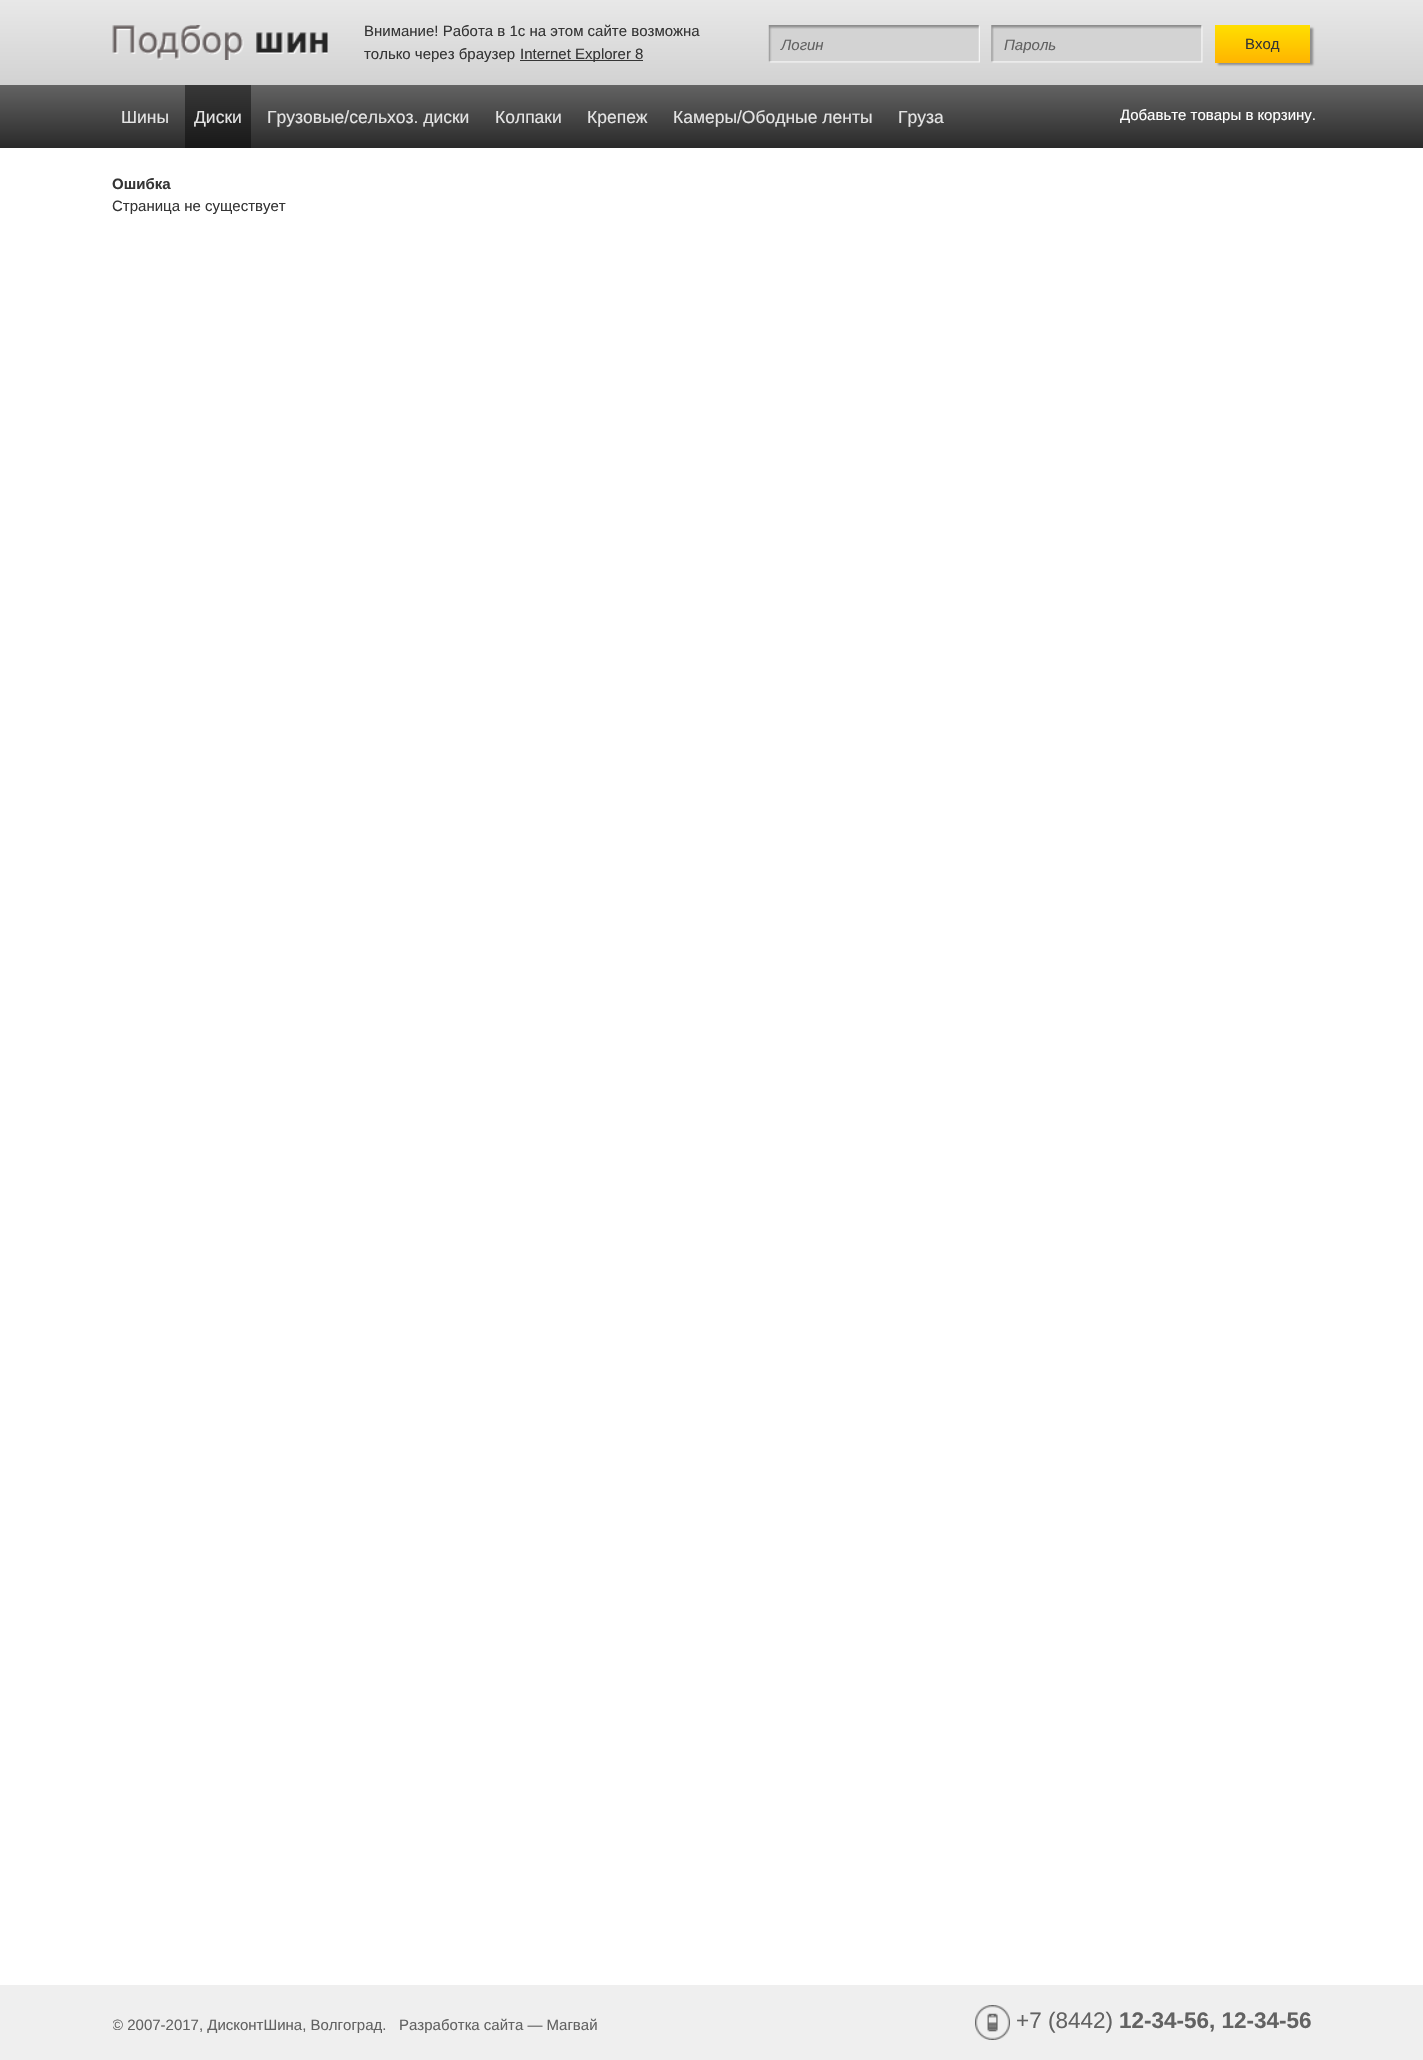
void draw(SkCanvas* canvas) {
  SkPaint paint;
  paint.setAntiAlias(true);
  auto face = [&](const char* family, int weight, float size, bool italic = false) {
    SkFontStyle style(weight, SkFontStyle::kNormal_Width,
      italic ? SkFontStyle::kItalic_Slant : SkFontStyle::kUpright_Slant);
    SkFont result(fontMgr->matchFamilyStyle(family, style), size);
    result.setSubpixel(true);
    return result;
  };
  auto paste = [&](const char* path, float x, float y, float w, float h) {
    auto image = SkImages::DeferredFromEncodedData(SkData::MakeFromFileName(path));
    canvas->drawImageRect(image, SkRect::MakeXYWH(x, y, w, h), SkSamplingOptions());
  };
  canvas->clear(0xffffffff);
  {
    const SkColor colors[] = {0xffe8e8e8, 0xffd2d2d2};
    const float stops[] = {0, 1};
    const SkPoint ends[] = {{712, 0}, {712, 85}};
    paint.setShader(SkGradientShader::MakeLinear(ends, colors, stops, 2, SkTileMode::kClamp));
    paint.setAlpha(255);
  }
  canvas->drawRect(SkRect::MakeXYWH(0, 0, 1423, 85), paint);
  paste("img/1.png", 112, 25, 216, 35);
  paint.setShader(nullptr);
  paint.setColor(0xff353535);
  canvas->drawRect(SkRect::MakeXYWH(520, 60, 123, 1), paint);
  paste("img/2.png", 768, 25, 212, 38);
  paste("img/3.png", 991, 25, 212, 38);
  paint.setColor(0xff8e8e8e);
  paint.setMaskFilter(SkMaskFilter::MakeBlur(kNormal_SkBlurStyle, 1));
  canvas->drawRect(SkRect::MakeXYWH(1218, 28, 95, 37), paint);
  paint.setMaskFilter(nullptr);
  {
    const SkColor colors[] = {0xffffdf00, 0xffffb400};
    const float stops[] = {0, 1};
    const SkPoint ends[] = {{1263, 25}, {1263, 63}};
    paint.setShader(SkGradientShader::MakeLinear(ends, colors, stops, 2, SkTileMode::kClamp));
    paint.setAlpha(255);
  }
  canvas->drawRect(SkRect::MakeXYWH(1215, 25, 95, 38), paint);
  {
    const SkColor colors[] = {0xff636363, 0xff2a2a2a};
    const float stops[] = {0, 1};
    const SkPoint ends[] = {{712, 85}, {712, 148}};
    paint.setShader(SkGradientShader::MakeLinear(ends, colors, stops, 2, SkTileMode::kClamp));
    paint.setAlpha(255);
  }
  canvas->drawRect(SkRect::MakeXYWH(0, 85, 1423, 63), paint);
  {
    const SkColor colors[] = {0xff383838, 0xff181818};
    const float stops[] = {0, 1};
    const SkPoint ends[] = {{218, 85}, {218, 148}};
    paint.setShader(SkGradientShader::MakeLinear(ends, colors, stops, 2, SkTileMode::kClamp));
    paint.setAlpha(255);
  }
  canvas->drawRect(SkRect::MakeXYWH(185, 85, 66, 63), paint);
  paint.setShader(nullptr);
  paint.setColor(0xffefefef);
  canvas->drawRect(SkRect::MakeXYWH(0, 1985, 1423, 75), paint);
  paste("img/4.png", 975, 2005, 35, 35);
  auto f0 = face("Liberation Sans", 400, 15);
  paint.setColor(0xff353535);
  {
    const struct { const char* s; float x, y; } items[] = {
      {"Внимание! Работа в 1с на этом сайте возможна", 364, 36},
      {"только через браузер", 364, 59},
      {"Internet Explorer 8", 520, 59},
    };
    for (auto [s, x, y] : items) {
      canvas->drawString(s, x, y, f0, paint);
    }
  }
  auto f1 = face("Liberation Sans", 400, 15, true);
  paint.setColor(0xff626262);
  canvas->drawString("Логин", 781, 50, f1, paint);
  canvas->drawString("Пароль", 1004, 50, f1, paint);
  paint.setColor(0xff353535);
  canvas->drawString("Вход", 1245, 49, f0, paint);
  auto f2 = face("Liberation Sans", 400, 17.5f);
  paint.setColor(0xffe4e4e4);
  {
    const struct { const char* s; float x, y; } items[] = {
      {"Шины", 121, 123},
      {"Диски", 194, 123},
      {"Грузовые/сельхоз. диски", 267, 123},
      {"Колпаки", 495, 123},
      {"Крепеж", 587, 123},
      {"Камеры/Ободные ленты", 673, 123},
      {"Груза", 898, 123},
    };
    for (auto [s, x, y] : items) {
      canvas->drawString(s, x, y, f2, paint);
    }
  }
  paint.setColor(0xffffffff);
  canvas->drawString("Добавьте товары в корзину.", 1120, 120, f0, paint);
  auto f3 = face("Liberation Sans", 700, 15);
  paint.setColor(0xff353535);
  canvas->drawString("Ошибка", 112, 189, f3, paint);
  canvas->drawString("Страница не существует", 112, 211, f0, paint);
  canvas->save();
  canvas->clipRect(SkRect::MakeXYWH(113, 1985, 1200, 55));
  paint.setColor(0xff626262);
  canvas->drawString("© 2007-2017, ДисконтШина, Волгоград.", 112, 2030, f0, paint);
  canvas->restore();
  canvas->drawString("Разработка сайта — Магвай", 399, 2030, f0, paint);
  auto f4 = face("Liberation Sans", 400, 22.5f);
  canvas->drawString("+7 (8442)", 1016, 2028, f4, paint);
  auto f5 = face("Liberation Sans", 700, 22.5f);
  canvas->drawString("12-34-56, 12-34-56", 1119, 2028, f5, paint);
}
